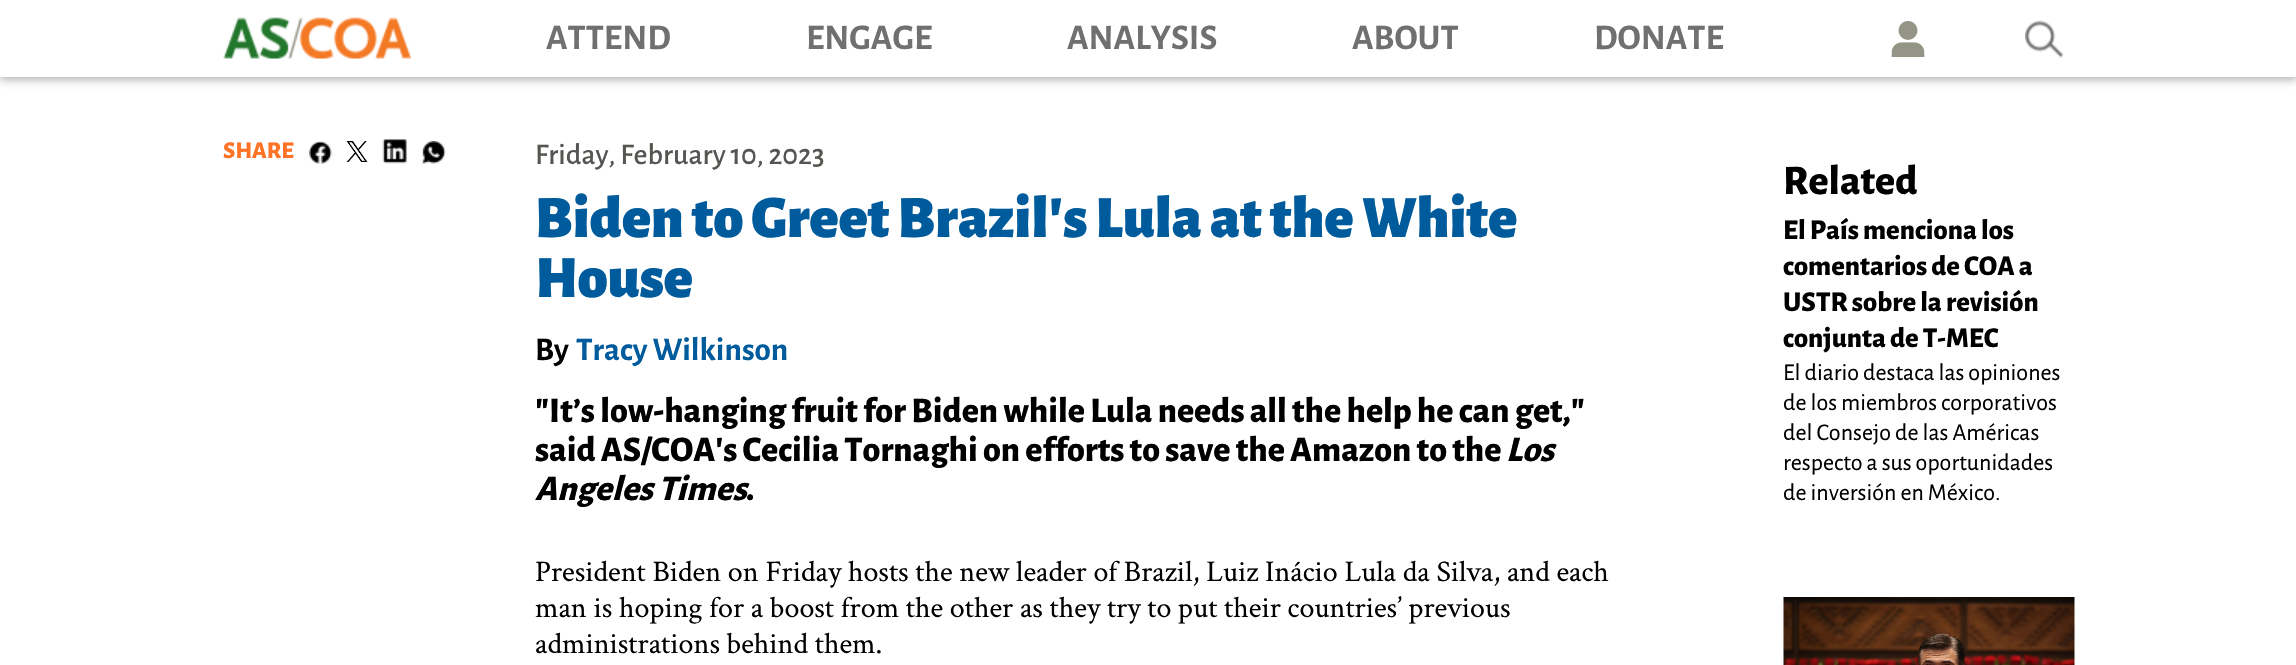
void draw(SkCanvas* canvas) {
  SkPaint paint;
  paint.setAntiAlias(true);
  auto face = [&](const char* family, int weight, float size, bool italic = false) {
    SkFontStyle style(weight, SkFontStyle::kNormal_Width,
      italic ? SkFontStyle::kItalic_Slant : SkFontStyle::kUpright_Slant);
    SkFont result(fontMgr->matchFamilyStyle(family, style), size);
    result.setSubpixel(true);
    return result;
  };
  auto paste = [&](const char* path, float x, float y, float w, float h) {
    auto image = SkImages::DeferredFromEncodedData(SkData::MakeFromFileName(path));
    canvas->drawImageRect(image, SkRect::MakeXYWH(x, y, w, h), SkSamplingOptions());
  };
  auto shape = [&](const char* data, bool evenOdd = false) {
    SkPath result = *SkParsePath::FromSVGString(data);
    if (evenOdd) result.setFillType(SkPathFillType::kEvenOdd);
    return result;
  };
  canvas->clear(0xffffffff);
  canvas->save();
  canvas->clipPath(shape("M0 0H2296V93H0ZM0 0H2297V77H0Z", true), true);
  paint.setColor(0x4a000000);
  paint.setMaskFilter(SkMaskFilter::MakeBlur(kNormal_SkBlurStyle, 4));
  canvas->drawRect(SkRect::MakeXYWH(0, 3, 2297, 77), paint);
  paint.setMaskFilter(nullptr);
  canvas->restore();
  paste("img/1.png", 223, 17, 188, 42);
  paste("img/2.png", 1891, 21, 34, 36);
  paste("img/3.png", 2025, 20, 39, 38);
  paste("img/4.png", 309, 141, 23, 23);
  paste("img/5.png", 346, 141, 22, 21);
  paste("img/6.png", 382, 139, 25, 25);
  paste("img/7.png", 421, 141, 25, 23);
  paste("img/8.png", 1783, 597, 292, 68);
  auto f0 = face("Alegreya Sans", 700, 36);
  paint.setColor(0xff707070);
  {
    const struct { const char* s; float x, y; } items[] = {
      {"ATTEND", 546, 49},
      {"ENGAGE", 806, 49},
      {"ANALYSIS", 1067, 49},
      {"ABOUT", 1352, 49},
      {"DONATE", 1594, 49},
    };
    for (auto [s, x, y] : items) {
      canvas->drawString(s, x, y, f0, paint);
    }
  }
  auto f1 = face("Alegreya Sans", 800, 24);
  paint.setColor(0xffff7326);
  canvas->drawString("SHARE", 223, 158, f1, paint);
  auto f2 = face("Alegreya Sans", 500, 30);
  paint.setColor(0xff555552);
  canvas->drawString("Friday, February 10, 2023", 535, 164, f2, paint);
  auto f3 = face("Alegreya Sans", 900, 60);
  paint.setColor(0xff005b9c);
  canvas->drawString("Biden to Greet Brazil's Lula at the White", 535, 237, f3, paint);
  canvas->drawString("House", 535, 297, f3, paint);
  auto f4 = face("Alegreya Sans", 700, 33);
  paint.setColor(0xff000000);
  canvas->drawString("By", 535, 360, f4, paint);
  paint.setColor(0xff005b9c);
  canvas->drawString("Tracy Wilkinson", 576, 360, f4, paint);
  auto f5 = face("Alegreya Sans", 800, 36);
  paint.setColor(0xff000000);
  canvas->drawString("\"It’s low-hanging fruit for Biden while Lula needs all the help he can get,\"", 535, 422, f5, paint);
  canvas->drawString("said AS/COA's Cecilia Tornaghi on efforts to save the Amazon to the", 535, 461, f5, paint);
  auto f6 = face("Alegreya Sans", 800, 36, true);
  canvas->drawString("Los", 1506, 461, f6, paint);
  canvas->drawString("Angeles Times", 535, 500, f6, paint);
  canvas->drawString(".", 746, 500, f5, paint);
  auto f7 = face("Crimson Text", 400, 30);
  {
    const struct { const char* s; float x, y; } items[] = {
      {"President Biden on Friday hosts the new leader of Brazil, Luiz Inácio Lula da Silva, and each", 535, 581},
      {"man is hoping for a boost from the other as they try to put their countries’ previous", 535, 617},
      {"administrations behind them.", 535, 653},
    };
    for (auto [s, x, y] : items) {
      canvas->drawString(s, x, y, f7, paint);
    }
  }
  auto f8 = face("Alegreya Sans", 800, 42);
  canvas->drawString("Related", 1783, 194, f8, paint);
  auto f9 = face("Alegreya Sans", 800, 28.5f);
  {
    const struct { const char* s; float x, y; } items[] = {
      {"El País menciona los", 1783, 239},
      {"comentarios de COA a", 1783, 275},
      {"USTR sobre la revisión", 1783, 311},
      {"conjunta de T-MEC", 1783, 347},
    };
    for (auto [s, x, y] : items) {
      canvas->drawString(s, x, y, f9, paint);
    }
  }
  auto f10 = face("Alegreya Sans", 400, 24);
  {
    const struct { const char* s; float x, y; } items[] = {
      {"El diario destaca las opiniones", 1783, 380},
      {"de los miembros corporativos", 1783, 410},
      {"del Consejo de las Américas", 1783, 440},
      {"respecto a sus oportunidades", 1783, 470},
      {"de inversión en México.", 1783, 500},
    };
    for (auto [s, x, y] : items) {
      canvas->drawString(s, x, y, f10, paint);
    }
  }
}
